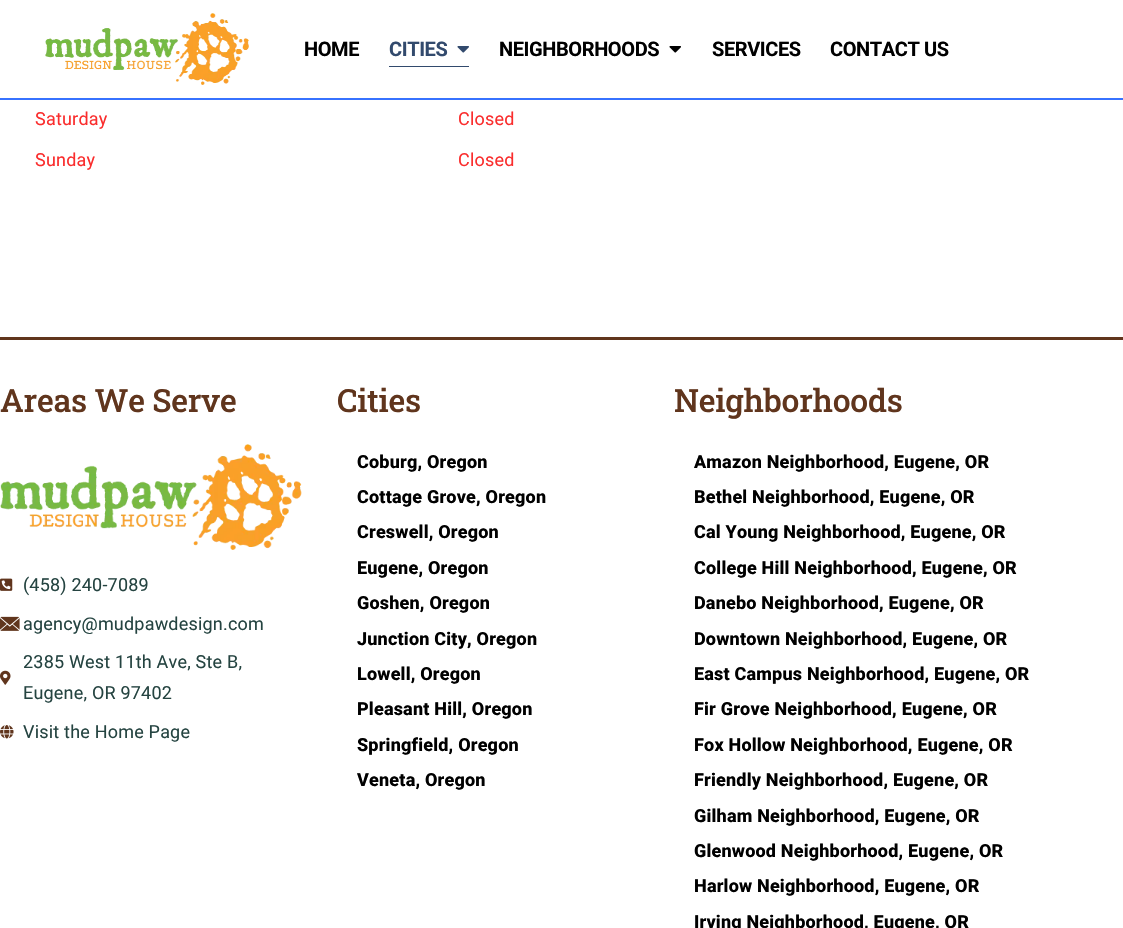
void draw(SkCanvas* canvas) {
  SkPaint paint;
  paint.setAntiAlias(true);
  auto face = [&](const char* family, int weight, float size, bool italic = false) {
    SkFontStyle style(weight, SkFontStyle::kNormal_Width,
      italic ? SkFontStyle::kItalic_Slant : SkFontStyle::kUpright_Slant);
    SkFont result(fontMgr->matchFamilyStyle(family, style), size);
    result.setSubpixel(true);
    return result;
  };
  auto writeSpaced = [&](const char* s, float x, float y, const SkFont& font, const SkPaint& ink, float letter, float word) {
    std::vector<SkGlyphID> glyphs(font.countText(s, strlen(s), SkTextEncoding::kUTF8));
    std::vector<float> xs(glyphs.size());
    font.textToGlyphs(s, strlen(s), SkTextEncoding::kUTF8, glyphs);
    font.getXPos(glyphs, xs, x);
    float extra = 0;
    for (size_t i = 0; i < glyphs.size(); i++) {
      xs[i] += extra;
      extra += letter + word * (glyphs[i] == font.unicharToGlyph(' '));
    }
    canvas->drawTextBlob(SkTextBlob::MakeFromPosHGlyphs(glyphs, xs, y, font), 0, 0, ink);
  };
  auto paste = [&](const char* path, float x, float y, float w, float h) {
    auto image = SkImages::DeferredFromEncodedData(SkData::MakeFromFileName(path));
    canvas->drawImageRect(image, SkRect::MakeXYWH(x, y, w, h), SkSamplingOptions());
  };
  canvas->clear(0xffffffff);
  paint.setColor(0xff3772ff);
  canvas->drawRect(SkRect::MakeXYWH(0, 98, 1123, 2), paint);
  paste("img/1.png", 45, 13, 204, 72);
  paste("img/2.png", 457, 46, 12, 7);
  paint.setColor(0xff324a6d);
  canvas->drawRect(SkRect::MakeXYWH(389, 66, 80, 1), paint);
  paste("img/3.png", 669, 46, 12, 7);
  paint.setColor(0xff60351d);
  canvas->drawRect(SkRect::MakeXYWH(0, 337, 1123, 3), paint);
  paste("img/4.png", 0, 444, 302, 106);
  paste("img/5.png", 0, 578, 13, 13);
  paste("img/6.png", 0, 616, 20, 15);
  paste("img/7.png", 0, 670, 11, 15);
  paste("img/8.png", 0, 725, 14, 14);
  auto f0 = face("Roboto", 700, 20);
  paint.setColor(0xff000000);
  writeSpaced("HOME", 304, 56, f0, paint, -0.4f, 0);
  paint.setColor(0xff324a6d);
  writeSpaced("CITIES", 389, 56, f0, paint, -0.4f, 0);
  paint.setColor(0xff000000);
  {
    const struct { const char* s; float x, y; } items[] = {
      {"NEIGHBORHOODS", 499, 56},
      {"SERVICES", 712, 56},
      {"CONTACT US", 830, 56},
    };
    for (auto [s, x, y] : items) {
      writeSpaced(s, x, y, f0, paint, -0.4f, 0);
    }
  }
  auto f1 = face("Roboto", 400, 18);
  paint.setColor(0xfffa2d2d);
  {
    const struct { const char* s; float x, y; } items[] = {
      {"Saturday", 35, 125},
      {"Closed", 458, 125},
      {"Sunday", 35, 166},
      {"Closed", 458, 166},
    };
    for (auto [s, x, y] : items) {
      writeSpaced(s, x, y, f1, paint, 0.2f, 0);
    }
  }
  auto f2 = face("Roboto Slab", 500, 32);
  paint.setColor(0xff60351d);
  writeSpaced("Areas We Serve", 0, 412, f2, paint, -0.25f, 0);
  paint.setColor(0xff254441);
  {
    const struct { const char* s; float x, y; } items[] = {
      {"(458) 240-7089", 23, 591},
      {"agency@mudpawdesign.com", 23, 630},
      {"2385 West 11th Ave, Ste B,", 23, 668},
      {"Eugene, OR 97402", 23, 699},
      {"Visit the Home Page", 23, 738},
    };
    for (auto [s, x, y] : items) {
      writeSpaced(s, x, y, f1, paint, 0.2f, 0);
    }
  }
  paint.setColor(0xff60351d);
  writeSpaced("Cities", 337, 412, f2, paint, -0.25f, 0);
  auto f3 = face("Roboto", 800, 18);
  paint.setColor(0xff000000);
  {
    const struct { const char* s; float x, y; } items[] = {
      {"Coburg, Oregon", 357, 468},
      {"Cottage Grove, Oregon", 357, 503},
      {"Creswell, Oregon", 357, 538},
      {"Eugene, Oregon", 357, 574},
      {"Goshen, Oregon", 357, 609},
      {"Junction City, Oregon", 357, 645},
      {"Lowell, Oregon", 357, 680},
      {"Pleasant Hill, Oregon", 357, 715},
      {"Springfield, Oregon", 357, 751},
      {"Veneta, Oregon", 357, 786},
    };
    for (auto [s, x, y] : items) {
      writeSpaced(s, x, y, f3, paint, 0.2f, 0);
    }
  }
  paint.setColor(0xff60351d);
  writeSpaced("Neighborhoods", 674, 412, f2, paint, -0.25f, 0);
  paint.setColor(0xff000000);
  {
    const struct { const char* s; float x, y; } items[] = {
      {"Amazon Neighborhood, Eugene, OR", 694, 468},
      {"Bethel Neighborhood, Eugene, OR", 694, 503},
      {"Cal Young Neighborhood, Eugene, OR", 694, 538},
      {"College Hill Neighborhood, Eugene, OR", 694, 574},
      {"Danebo Neighborhood, Eugene, OR", 694, 609},
      {"Downtown Neighborhood, Eugene, OR", 694, 645},
      {"East Campus Neighborhood, Eugene, OR", 694, 680},
      {"Fir Grove Neighborhood, Eugene, OR", 694, 715},
      {"Fox Hollow Neighborhood, Eugene, OR", 694, 751},
      {"Friendly Neighborhood, Eugene, OR", 694, 786},
      {"Gilham Neighborhood, Eugene, OR", 694, 822},
      {"Glenwood Neighborhood, Eugene, OR", 694, 857},
      {"Harlow Neighborhood, Eugene, OR", 694, 892},
      {"Irving Neighborhood, Eugene, OR", 694, 928},
    };
    for (auto [s, x, y] : items) {
      writeSpaced(s, x, y, f3, paint, 0.2f, 0);
    }
  }
}
